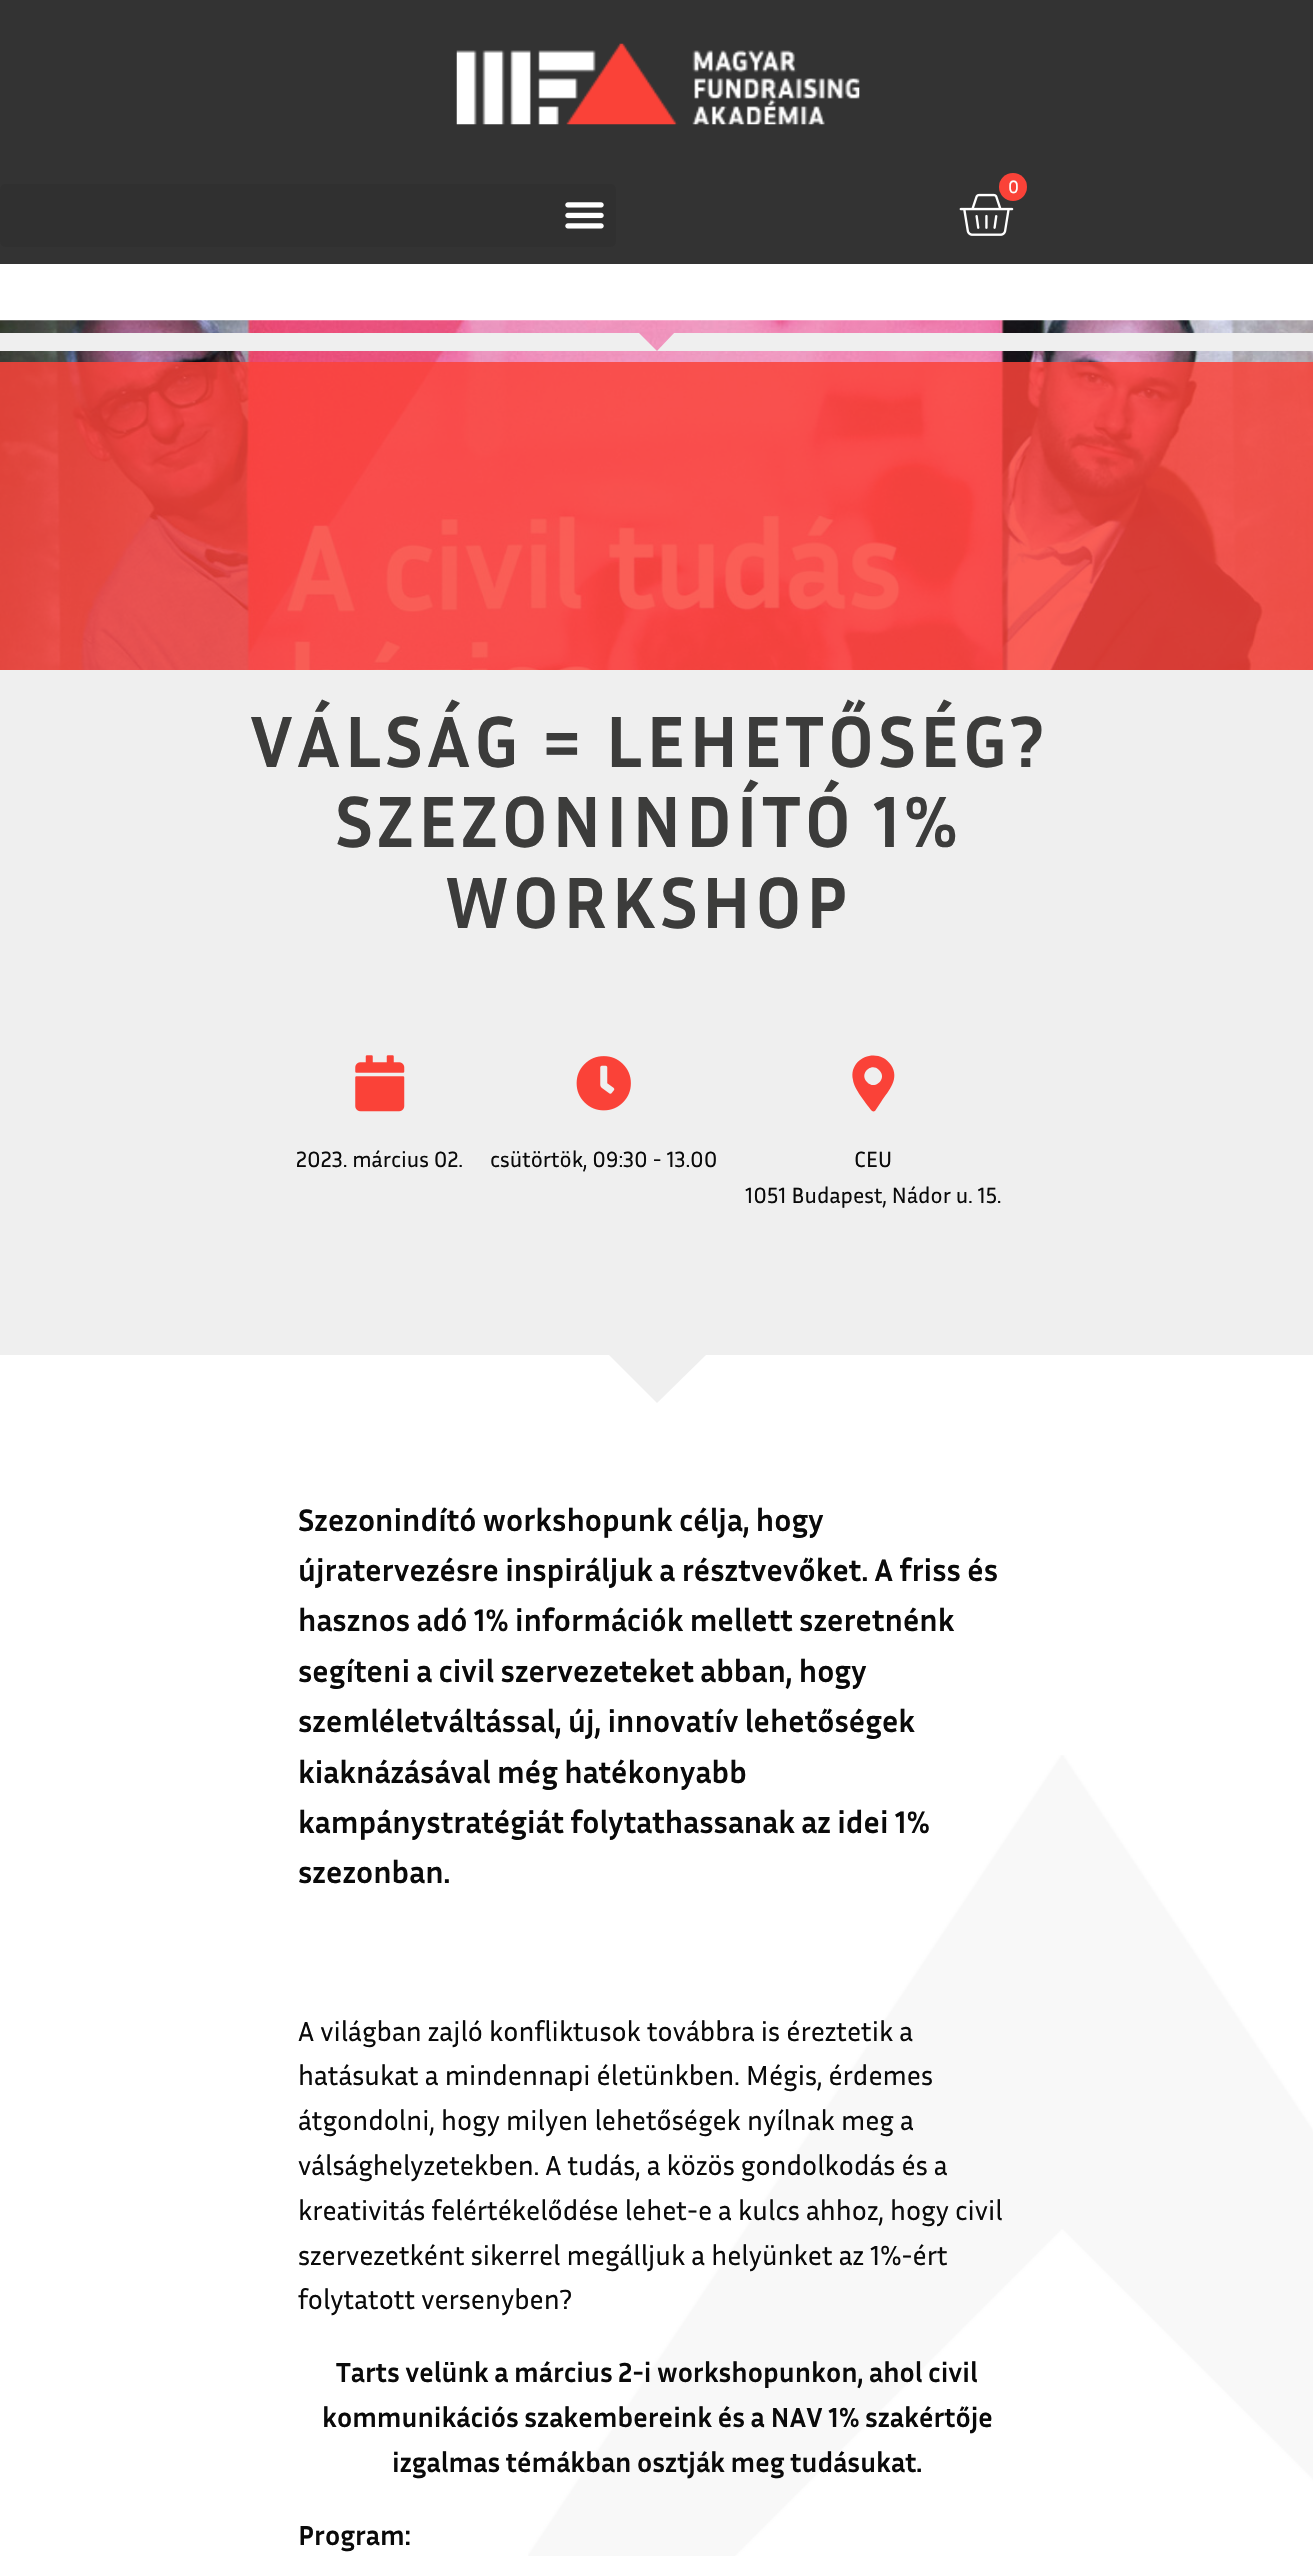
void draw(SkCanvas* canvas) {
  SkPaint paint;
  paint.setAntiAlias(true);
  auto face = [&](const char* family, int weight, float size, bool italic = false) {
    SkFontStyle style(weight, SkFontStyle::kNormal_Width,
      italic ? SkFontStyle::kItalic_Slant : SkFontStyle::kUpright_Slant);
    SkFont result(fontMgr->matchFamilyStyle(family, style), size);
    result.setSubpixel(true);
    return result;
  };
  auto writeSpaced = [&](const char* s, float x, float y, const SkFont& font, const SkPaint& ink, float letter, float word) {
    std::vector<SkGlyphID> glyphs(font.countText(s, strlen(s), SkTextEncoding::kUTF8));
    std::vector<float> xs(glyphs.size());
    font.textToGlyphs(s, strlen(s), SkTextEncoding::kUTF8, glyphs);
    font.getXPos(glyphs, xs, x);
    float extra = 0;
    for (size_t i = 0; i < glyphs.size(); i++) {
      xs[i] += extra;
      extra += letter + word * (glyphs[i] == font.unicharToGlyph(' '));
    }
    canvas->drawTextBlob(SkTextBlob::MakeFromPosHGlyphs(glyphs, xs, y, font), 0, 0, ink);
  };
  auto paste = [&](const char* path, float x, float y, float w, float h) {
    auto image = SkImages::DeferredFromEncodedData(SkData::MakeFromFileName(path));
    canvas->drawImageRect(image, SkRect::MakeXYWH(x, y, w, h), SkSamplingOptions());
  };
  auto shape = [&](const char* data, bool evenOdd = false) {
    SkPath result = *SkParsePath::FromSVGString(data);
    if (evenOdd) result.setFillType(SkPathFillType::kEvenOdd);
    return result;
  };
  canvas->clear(0xffffffff);
  paste("img/1.png", 528, 1755, 785, 801);
  paint.setColor(0xff333333);
  canvas->drawRect(SkRect::MakeXYWH(0, 0, 1313, 264), paint);
  paste("img/2.png", 456, 43, 404, 82);
  paint.setColor(0xff303030);
  canvas->drawRoundRect(SkRect::MakeXYWH(0, 184, 616, 63), 5, 5, paint);
  paste("img/3.png", 565, 202, 39, 27);
  paste("img/4.png", 959, 193, 55, 43);
  paint.setColor(0xfffa4238);
  canvas->drawCircle(1013, 187, 14, paint);
  paste("img/5.png", 0, 320, 1313, 350);
  canvas->save();
  canvas->clipRect(SkRect::MakeXYWH(0, 333, 1313, 19));
  paint.setColor(0xffefefef);
  canvas->drawPath(shape("M675 332L657 351L638 332H0V351H1313V332"), paint);
  canvas->restore();
  paint.setColor(0xd9fa4238);
  canvas->drawRect(SkRect::MakeXYWH(0, 362, 1313, 308), paint);
  paint.setColor(0xffefefef);
  canvas->drawRect(SkRect::MakeXYWH(0, 670, 1313, 685), paint);
  paste("img/6.png", 355, 1055, 50, 57);
  paste("img/7.png", 576, 1056, 55, 55);
  paint.setColor(0xfffa4238);
  canvas->drawPath(shape("M871 1110C866 1103 854 1089 853 1080C848 1058 878 1046 891 1065C900 1079 889 1090 881 1102L875 1111C873 1112 872 1111 871 1110ZM867 1082C875 1091 888 1078 879 1070C871 1062 859 1074 867 1082Z"), paint);
  paint.setColor(0xffefefef);
  canvas->drawPath(shape("M657 1304L707 1354L657 1403L608 1354Z"), paint);
  auto f0 = face("Inria Sans", 400, 18);
  paint.setColor(0xffffffff);
  canvas->drawString("0", 1008, 193, f0, paint);
  auto f1 = face("Inria Sans", 700, 73.5f);
  paint.setColor(0xff3c3c3b);
  {
    const struct { const char* s; float x, y; } items[] = {
      {"VÁLSÁG = LEHETŐSÉG?", 250, 767},
      {"SZEZONINDÍTÓ 1%", 335, 847},
      {"WORKSHOP", 445, 928},
    };
    for (auto [s, x, y] : items) {
      writeSpaced(s, x, y, f1, paint, 3.5f, 0);
    }
  }
  auto f2 = face("Inria Sans", 400, 22.4f);
  paint.setColor(0xff0a0a0a);
  {
    const struct { const char* s; float x, y; } items[] = {
      {"2023. március 02.", 296, 1167},
      {"csütörtök, 09:30 - 13.00", 490, 1167},
      {"CEU", 854, 1167},
      {"1051 Budapest, Nádor u. 15.", 745, 1203},
    };
    for (auto [s, x, y] : items) {
      canvas->drawString(s, x, y, f2, paint);
    }
  }
  auto f3 = face("Inria Sans", 700, 31.5f);
  {
    const struct { const char* s; float x, y; } items[] = {
      {"Szezonindító workshopunk célja, hogy", 298, 1531},
      {"újratervezésre inspiráljuk a résztvevőket. A friss és", 298, 1581},
      {"hasznos adó 1% információk mellett szeretnénk", 298, 1631},
      {"segíteni a civil szervezeteket abban, hogy", 298, 1682},
      {"szemléletváltással, új, innovatív lehetőségek", 298, 1732},
      {"kiaknázásával még hatékonyabb", 298, 1783},
      {"kampánystratégiát folytathassanak az idei 1%", 298, 1833},
      {"szezonban.", 298, 1883},
    };
    for (auto [s, x, y] : items) {
      canvas->drawString(s, x, y, f3, paint);
    }
  }
  auto f4 = face("Inria Sans", 400, 28);
  {
    const struct { const char* s; float x, y; } items[] = {
      {"A világban zajló konfliktusok továbbra is éreztetik a", 298, 2041},
      {"hatásukat a mindennapi életünkben. Mégis, érdemes", 298, 2085},
      {"átgondolni, hogy milyen lehetőségek nyílnak meg a", 298, 2130},
      {"válsághelyzetekben. A tudás, a közös gondolkodás és a", 298, 2175},
      {"kreativitás felértékelődése lehet-e a kulcs ahhoz, hogy civil", 298, 2220},
      {"szervezetként sikerrel megálljuk a helyünket az 1%-ért", 298, 2265},
      {"folytatott versenyben?", 298, 2309},
    };
    for (auto [s, x, y] : items) {
      canvas->drawString(s, x, y, f4, paint);
    }
  }
  auto f5 = face("Inria Sans", 700, 28);
  {
    const struct { const char* s; float x, y; } items[] = {
      {"Tarts velünk a március 2-i workshopunkon, ahol civil", 336, 2382},
      {"kommunikációs szakembereink és a NAV 1% szakértője", 322, 2427},
      {"izgalmas témákban osztják meg tudásukat.", 392, 2472},
      {"Program:", 298, 2545},
    };
    for (auto [s, x, y] : items) {
      canvas->drawString(s, x, y, f5, paint);
    }
  }
}
